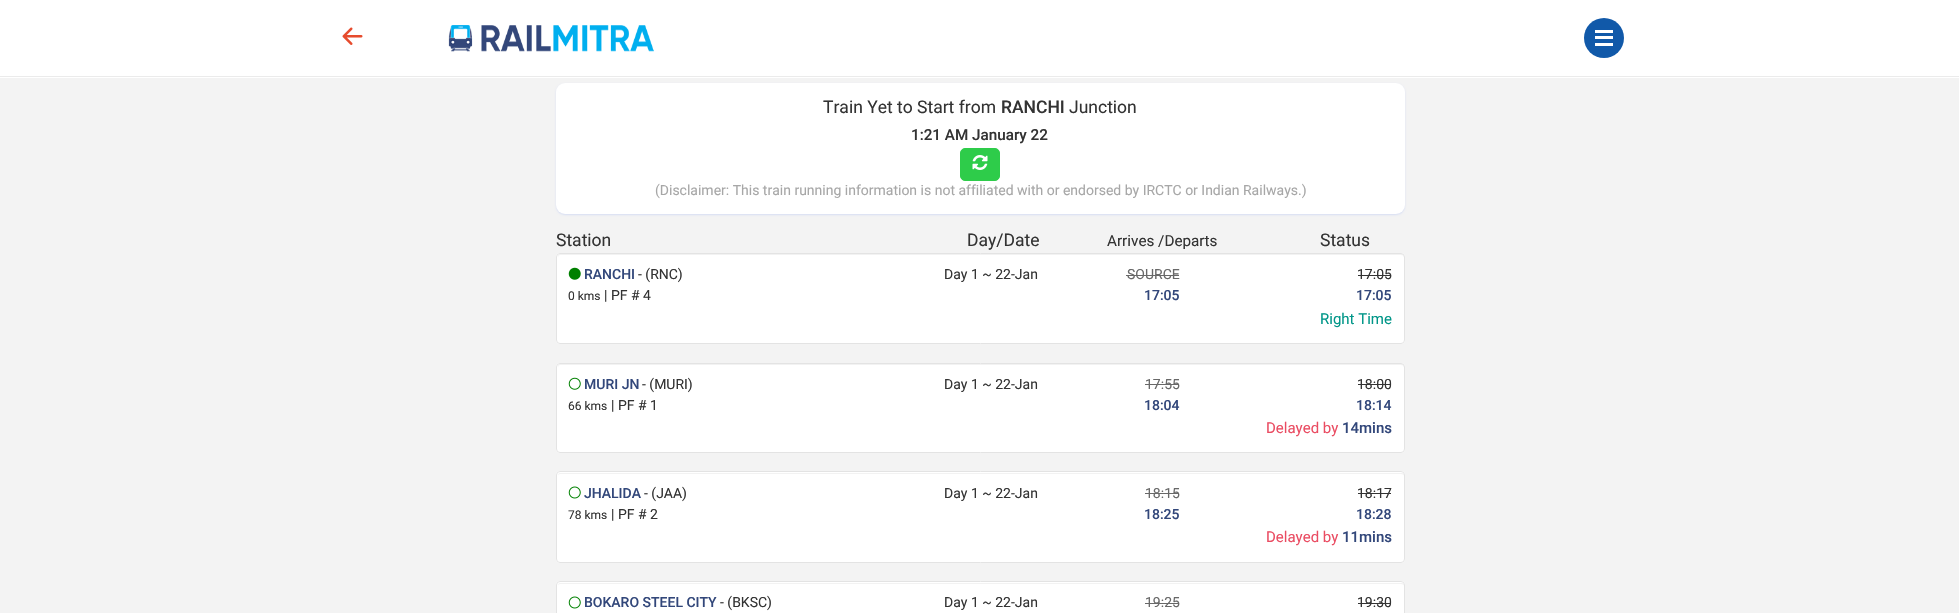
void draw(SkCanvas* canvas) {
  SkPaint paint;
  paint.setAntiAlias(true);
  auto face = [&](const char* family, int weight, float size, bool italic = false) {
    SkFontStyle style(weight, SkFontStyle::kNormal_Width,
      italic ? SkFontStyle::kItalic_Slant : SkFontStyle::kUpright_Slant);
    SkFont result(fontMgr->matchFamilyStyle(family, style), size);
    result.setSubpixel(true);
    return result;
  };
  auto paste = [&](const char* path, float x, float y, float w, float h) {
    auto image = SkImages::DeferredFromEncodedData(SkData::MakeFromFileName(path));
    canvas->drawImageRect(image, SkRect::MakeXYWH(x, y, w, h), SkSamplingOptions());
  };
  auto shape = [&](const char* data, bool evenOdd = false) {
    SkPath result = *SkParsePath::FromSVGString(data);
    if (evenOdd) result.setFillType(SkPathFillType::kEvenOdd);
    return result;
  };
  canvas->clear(0xfff3f3f3);
  paint.setColor(0xffffffff);
  canvas->drawRect(SkRect::MakeXYWH(0, 0, 1959, 78), paint);
  paint.setColor(0xffebebeb);
  canvas->drawRect(SkRect::MakeXYWH(0, 76, 1959, 1), paint);
  paste("img/1.png", 342, 27, 21, 18);
  paste("img/2.png", 448, 25, 206, 27);
  paint.setColor(0xff1159a9);
  canvas->drawCircle(1604, 38, 20, paint);
  {
    const struct { float x, y, w, h; SkColor color; } items[] = {
      {1595, 30, 18, 3, 0xffffffff},
      {1595, 36, 18, 3, 0xffffffff},
      {1595, 43, 18, 3, 0xffffffff},
    };
    for (auto [x, y, w, h, color] : items) {
      paint.setColor(color);
      canvas->drawRect(SkRect::MakeXYWH(x, y, w, h), paint);
    }
  }
  paint.setColor(0xffd7def4);
  paint.setMaskFilter(SkMaskFilter::MakeBlur(kNormal_SkBlurStyle, 1));
  canvas->drawRoundRect(SkRect::MakeXYWH(556, 84, 849, 131), 9, 9, paint);
  paint.setMaskFilter(nullptr);
  paint.setColor(0xffffffff);
  canvas->drawRoundRect(SkRect::MakeXYWH(556, 83, 849, 131), 9, 9, paint);
  paint.setColor(0xff2ecc4a);
  canvas->drawRoundRect(SkRect::MakeXYWH(960.5f, 148.5f, 39, 32), 4.5f, 4.5f, paint);
  paint.setStroke(true);
  paint.setStrokeWidth(1);
  canvas->drawRoundRect(SkRect::MakeXYWH(960.5f, 148.5f, 39, 32), 4.5f, 4.5f, paint);
  paste("img/3.png", 972, 155, 16, 15);
  paint.setStroke(false);
  paint.setColor(0xffffffff);
  canvas->drawRoundRect(SkRect::MakeXYWH(556, 253, 849, 91), 4, 4, paint);
  paint.setColor(0xfff2f2f2);
  canvas->drawPath(shape("M560 255H1401C1403 255 1404 256 1404 258V256C1404 255 1403 254 1402 254H560C559 254 558 255 558 256V258C558 256 559 255 560 255Z"), paint);
  paint.setStroke(true);
  paint.setColor(0xffe3e3e3);
  canvas->drawRoundRect(SkRect::MakeXYWH(556.5f, 253.5f, 848, 90), 3.5f, 3.5f, paint);
  paste("img/4.png", 568, 267, 13, 13);
  paint.setStroke(false);
  paint.setColor(0xff686868);
  canvas->drawRect(SkRect::MakeXYWH(1126, 275, 53, 1), paint);
  paint.setColor(0xff333333);
  canvas->drawRect(SkRect::MakeXYWH(1358, 275, 33, 1), paint);
  paint.setColor(0xffffffff);
  canvas->drawRoundRect(SkRect::MakeXYWH(556, 363, 849, 90), 4, 4, paint);
  paint.setColor(0xfff2f2f2);
  canvas->drawPath(shape("M560 365H1401C1403 365 1404 366 1404 368V366C1404 365 1403 364 1402 364H560C559 364 558 365 558 366V368C558 366 559 365 560 365Z"), paint);
  paint.setStroke(true);
  paint.setColor(0xffe3e3e3);
  canvas->drawRoundRect(SkRect::MakeXYWH(556.5f, 363.5f, 848, 89), 3.5f, 3.5f, paint);
  paste("img/5.png", 568, 377, 13, 13);
  paint.setStroke(false);
  paint.setColor(0xff686868);
  canvas->drawRect(SkRect::MakeXYWH(1145, 384, 34, 1), paint);
  paint.setColor(0xff333333);
  canvas->drawRect(SkRect::MakeXYWH(1358, 384, 33, 1), paint);
  paint.setColor(0xffffffff);
  canvas->drawRoundRect(SkRect::MakeXYWH(556, 471, 849, 92), 4, 4, paint);
  paint.setColor(0xfff2f2f2);
  canvas->drawPath(shape("M560 474H1401C1403 474 1404 475 1404 476C1404 474 1403 473 1402 473H560C559 473 558 474 558 476C558 475 559 474 560 474Z"), paint);
  paint.setStroke(true);
  paint.setColor(0xffe3e3e3);
  canvas->drawRoundRect(SkRect::MakeXYWH(556.5f, 471.5f, 848, 91), 3.5f, 3.5f, paint);
  paste("img/6.png", 568, 486, 13, 13);
  paint.setStroke(false);
  paint.setColor(0xff686868);
  canvas->drawRect(SkRect::MakeXYWH(1145, 493, 34, 1), paint);
  paint.setColor(0xff333333);
  canvas->drawRect(SkRect::MakeXYWH(1358, 493, 33, 1), paint);
  paint.setColor(0xffffffff);
  canvas->drawRoundRect(SkRect::MakeXYWH(556, 581, 849, 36), 4, 4, paint);
  paint.setColor(0xfff2f2f2);
  canvas->drawPath(shape("M560 584H1401C1403 584 1404 585 1404 586C1404 584 1403 583 1402 583H560C559 583 558 584 558 586C558 585 559 584 560 584Z"), paint);
  paint.setStroke(true);
  paint.setColor(0xffe3e3e3);
  canvas->drawRoundRect(SkRect::MakeXYWH(556.5f, 581.5f, 848, 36), 3.5f, 3.5f, paint);
  paste("img/6.png", 568, 596, 13, 13);
  paint.setStroke(false);
  paint.setColor(0xff686868);
  canvas->drawRect(SkRect::MakeXYWH(1145, 603, 34, 1), paint);
  paint.setColor(0xff333333);
  canvas->drawRect(SkRect::MakeXYWH(1358, 603, 33, 1), paint);
  auto f0 = face("Roboto", 400, 17.5f);
  canvas->drawString("Train Yet to Start from", 823, 113, f0, paint);
  auto f1 = face("Roboto", 500, 17.5f);
  canvas->drawString("RANCHI", 1001, 113, f1, paint);
  canvas->drawString("Junction", 1069, 113, f0, paint);
  auto f2 = face("Roboto", 500, 15.25f);
  canvas->drawString("1:21 AM January 22", 911, 140, f2, paint);
  auto f3 = face("Roboto", 400, 14);
  paint.setColor(0xffa7a7a7);
  canvas->drawString("(Disclaimer: This train running information is not affiliated with or endorsed by IRCTC or Indian Railways.)", 655, 195, f3, paint);
  paint.setColor(0xff333333);
  canvas->drawString("Station", 556, 246, f0, paint);
  canvas->drawString("Day/Date", 967, 246, f0, paint);
  auto f4 = face("Roboto", 400, 15.25f);
  canvas->drawString("Arrives /Departs", 1107, 246, f4, paint);
  canvas->drawString("Status", 1320, 246, f0, paint);
  auto f5 = face("Roboto", 500, 14);
  paint.setColor(0xff32477a);
  canvas->drawString("RANCHI", 584, 279, f5, paint);
  paint.setColor(0xff333333);
  canvas->drawString("- (RNC)", 638, 279, f3, paint);
  auto f6 = face("Roboto", 400, 12);
  canvas->drawString("0 kms", 568, 300, f6, paint);
  canvas->drawString("| PF # 4", 604, 300, f3, paint);
  canvas->drawString("Day 1 ~ 22-Jan", 944, 279, f3, paint);
  paint.setColor(0xff686868);
  canvas->drawString("SOURCE", 1127, 279, f3, paint);
  paint.setColor(0xff32477a);
  canvas->drawString("17:05", 1144, 300, f5, paint);
  paint.setColor(0xff333333);
  canvas->drawString("17:05", 1357, 279, f3, paint);
  paint.setColor(0xff32477a);
  canvas->drawString("17:05", 1356, 300, f5, paint);
  auto f7 = face("Roboto", 400, 15);
  paint.setColor(0xff009688);
  canvas->drawString("Right Time", 1320, 324, f7, paint);
  paint.setColor(0xff32477a);
  canvas->drawString("MURI JN", 584, 389, f5, paint);
  paint.setColor(0xff333333);
  canvas->drawString("- (MURI)", 642, 389, f3, paint);
  canvas->drawString("66 kms", 568, 410, f6, paint);
  canvas->drawString("| PF # 1", 611, 410, f3, paint);
  canvas->drawString("Day 1 ~ 22-Jan", 944, 389, f3, paint);
  paint.setColor(0xff686868);
  canvas->drawString("17:55", 1145, 389, f3, paint);
  paint.setColor(0xff32477a);
  canvas->drawString("18:04", 1144, 410, f5, paint);
  paint.setColor(0xff333333);
  canvas->drawString("18:00", 1357, 389, f3, paint);
  paint.setColor(0xff32477a);
  canvas->drawString("18:14", 1356, 410, f5, paint);
  paint.setColor(0xffea4c62);
  canvas->drawString("Delayed by", 1266, 433, f7, paint);
  auto f8 = face("Roboto", 500, 15);
  paint.setColor(0xff32477a);
  canvas->drawString("14mins", 1342, 433, f8, paint);
  canvas->drawString("JHALIDA", 584, 498, f5, paint);
  paint.setColor(0xff333333);
  canvas->drawString("- (JAA)", 644, 498, f3, paint);
  canvas->drawString("78 kms", 568, 519, f6, paint);
  canvas->drawString("| PF # 2", 611, 519, f3, paint);
  canvas->drawString("Day 1 ~ 22-Jan", 944, 498, f3, paint);
  paint.setColor(0xff686868);
  canvas->drawString("18:15", 1145, 498, f3, paint);
  paint.setColor(0xff32477a);
  canvas->drawString("18:25", 1144, 519, f5, paint);
  paint.setColor(0xff333333);
  canvas->drawString("18:17", 1357, 498, f3, paint);
  paint.setColor(0xff32477a);
  canvas->drawString("18:28", 1356, 519, f5, paint);
  paint.setColor(0xffea4c62);
  canvas->drawString("Delayed by", 1266, 542, f7, paint);
  paint.setColor(0xff32477a);
  canvas->drawString("11mins", 1342, 542, f8, paint);
  canvas->drawString("BOKARO STEEL CITY", 584, 607, f5, paint);
  paint.setColor(0xff333333);
  canvas->drawString("- (BKSC)", 720, 607, f3, paint);
  canvas->drawString("Day 1 ~ 22-Jan", 944, 607, f3, paint);
  paint.setColor(0xff686868);
  canvas->drawString("19:25", 1145, 607, f3, paint);
  paint.setColor(0xff333333);
  canvas->drawString("19:30", 1357, 607, f3, paint);
}
